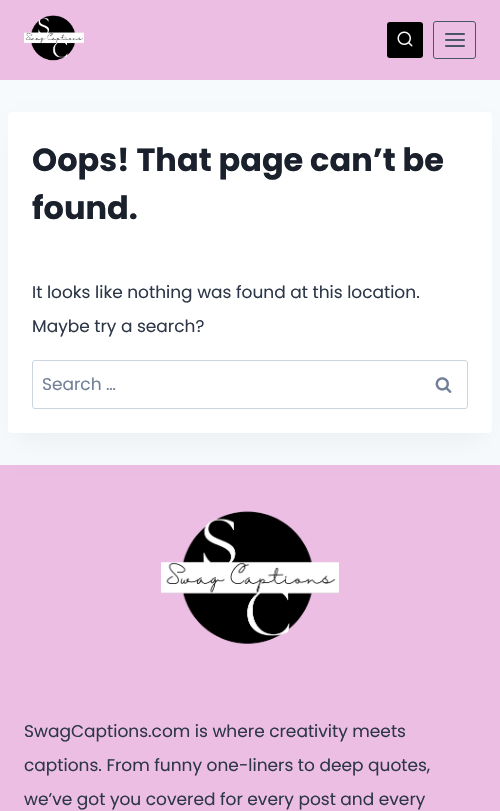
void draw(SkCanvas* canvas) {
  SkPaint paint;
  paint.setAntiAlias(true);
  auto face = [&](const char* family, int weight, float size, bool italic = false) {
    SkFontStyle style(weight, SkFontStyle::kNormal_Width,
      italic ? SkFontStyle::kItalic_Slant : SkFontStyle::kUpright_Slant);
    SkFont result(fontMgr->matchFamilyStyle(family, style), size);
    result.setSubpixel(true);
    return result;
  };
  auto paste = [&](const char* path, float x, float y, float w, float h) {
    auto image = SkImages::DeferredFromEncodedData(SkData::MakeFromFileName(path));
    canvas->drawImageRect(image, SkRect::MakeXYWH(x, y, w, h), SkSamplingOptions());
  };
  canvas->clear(0xfff7fafc);
  paint.setColor(0xffedbee4);
  canvas->drawRect(SkRect::MakeXYWH(0, 0, 500, 80), paint);
  paste("img/1.png", 24, 15, 60, 46);
  paint.setColor(0xff000000);
  canvas->drawRoundRect(SkRect::MakeXYWH(387, 22, 36, 36), 3, 3, paint);
  paste("img/2.png", 397, 31, 16, 16);
  paint.setStroke(true);
  paint.setStrokeWidth(1);
  paint.setColor(0xff4a5568);
  canvas->drawRoundRect(SkRect::MakeXYWH(433.5f, 21.5f, 42, 37), 2.5f, 2.5f, paint);
  paste("img/3.png", 445, 33, 20, 14);
  paint.setStroke(false);
  paint.setColor(0xffedbee4);
  canvas->drawRect(SkRect::MakeXYWH(0, 465, 500, 346), paint);
  paint.setColor(0x0d000000);
  paint.setMaskFilter(SkMaskFilter::MakeBlur(kNormal_SkBlurStyle, 12.5f));
  canvas->drawRect(SkRect::MakeXYWH(18, 137, 464, 301), paint);
  paint.setMaskFilter(nullptr);
  paint.setColor(0xffffffff);
  canvas->drawRoundRect(SkRect::MakeXYWH(8, 112, 484, 321), 4, 4, paint);
  paint.setStroke(true);
  paint.setColor(0xffcbd5e0);
  canvas->drawRoundRect(SkRect::MakeXYWH(32.5f, 360.5f, 435, 48), 2.5f, 2.5f, paint);
  paste("img/4.png", 435, 377, 17, 16);
  paste("img/5.png", 161, 511, 178, 133);
  auto f0 = face("Poppins", 700, 32);
  paint.setStroke(false);
  paint.setColor(0xff1a202c);
  canvas->drawString("Oops! That page can’t be", 32, 171, f0, paint);
  canvas->drawString("found.", 32, 219, f0, paint);
  auto f1 = face("Poppins", 400, 17);
  paint.setColor(0xff2d3748);
  canvas->drawString("It looks like nothing was found at this location.", 32, 298, f1, paint);
  canvas->drawString("Maybe try a search?", 32, 332, f1, paint);
  paint.setColor(0xff718096);
  canvas->drawString("Search …", 42, 390, f1, paint);
  paint.setColor(0xff2d3748);
  {
    const struct { const char* s; float x, y; } items[] = {
      {"SwagCaptions.com is where creativity meets", 24, 737},
      {"captions. From funny one-liners to deep quotes,", 24, 771},
      {"we’ve got you covered for every post and every", 24, 805},
    };
    for (auto [s, x, y] : items) {
      canvas->drawString(s, x, y, f1, paint);
    }
  }
}
